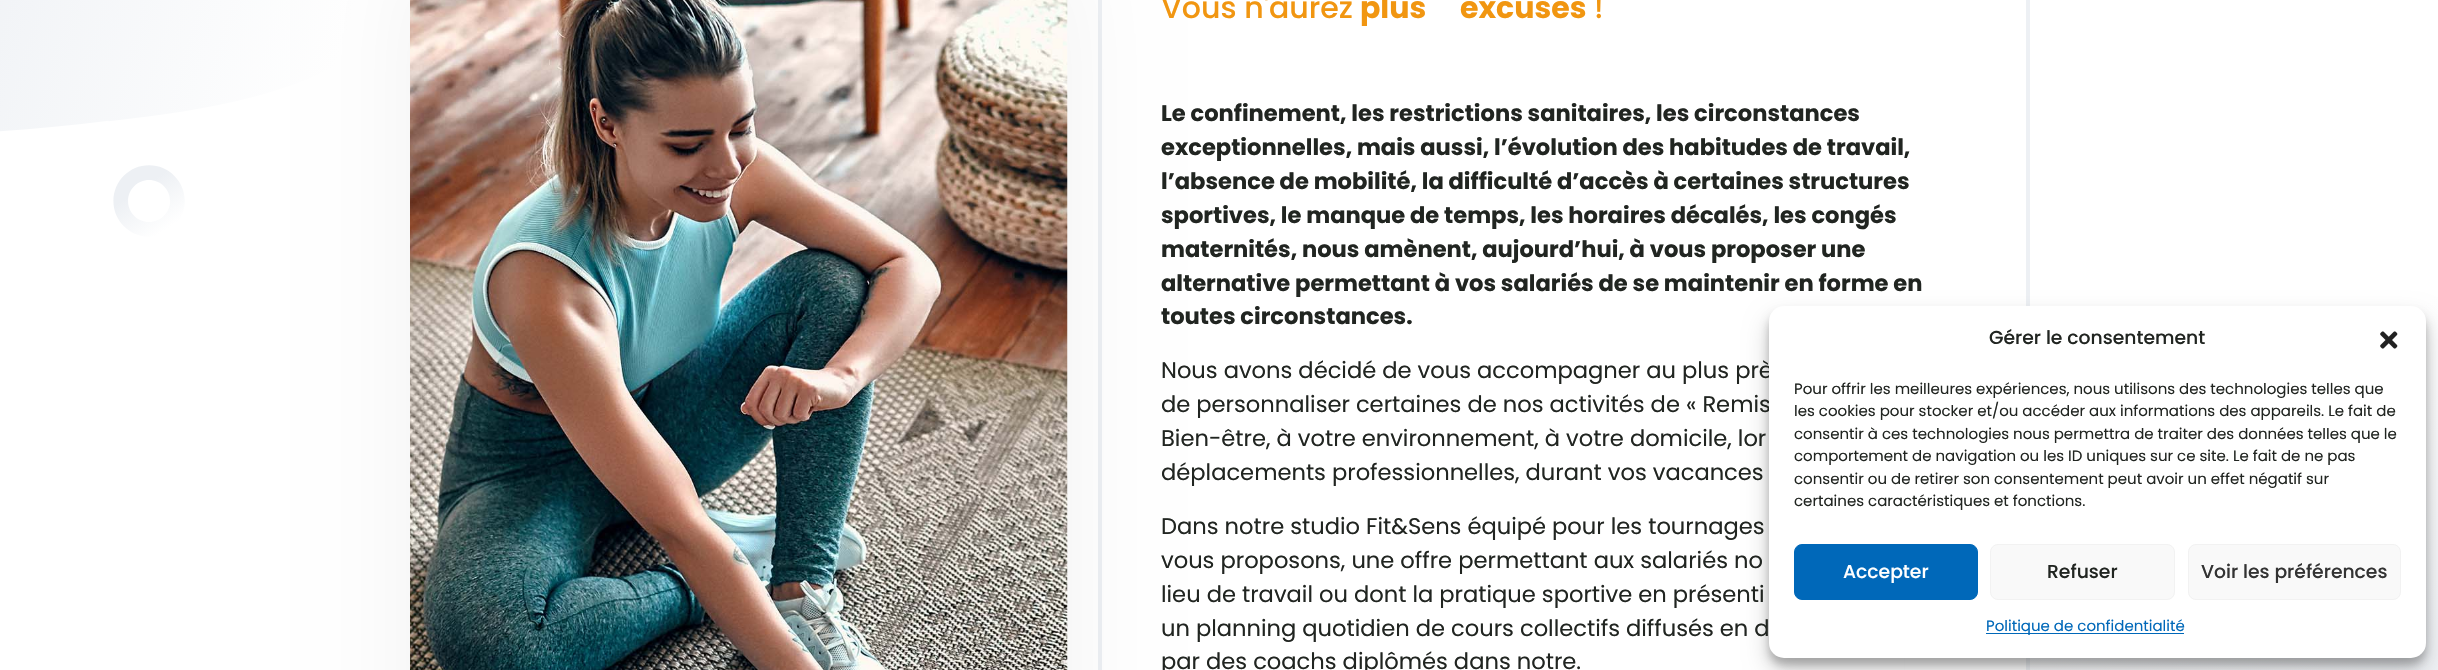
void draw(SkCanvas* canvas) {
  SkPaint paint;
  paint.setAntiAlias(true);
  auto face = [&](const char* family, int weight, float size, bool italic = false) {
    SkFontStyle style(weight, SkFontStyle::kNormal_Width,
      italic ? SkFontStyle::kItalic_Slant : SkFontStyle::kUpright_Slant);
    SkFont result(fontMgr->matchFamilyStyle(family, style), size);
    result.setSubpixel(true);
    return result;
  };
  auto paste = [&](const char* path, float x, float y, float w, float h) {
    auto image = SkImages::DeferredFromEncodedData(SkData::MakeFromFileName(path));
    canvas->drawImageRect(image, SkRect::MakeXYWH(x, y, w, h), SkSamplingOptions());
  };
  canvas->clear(0xffffffff);
  paste("img/1.png", 0, 0, 2438, 670);
  paint.setColor(0xffffffff);
  canvas->drawRect(SkRect::MakeXYWH(1905, 587, 121, 83), paint);
  paint.setStroke(true);
  paint.setStrokeWidth(4);
  paint.setColor(0xffedf0f4);
  canvas->drawRect(SkRect::MakeXYWH(1100, -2, 928, 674), paint);
  paint.setStroke(false);
  paint.setColor(0x0d000000);
  paint.setMaskFilter(SkMaskFilter::MakeBlur(kNormal_SkBlurStyle, 50));
  canvas->drawRoundRect(SkRect::MakeXYWH(410, -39, 658, 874), 15, 15, paint);
  paint.setMaskFilter(nullptr);
  paste("img/2.png", 410, 0, 658, 670);
  paint.setColor(0x3b000000);
  paint.setMaskFilter(SkMaskFilter::MakeBlur(kNormal_SkBlurStyle, 4));
  canvas->drawRoundRect(SkRect::MakeXYWH(1769, 314, 657, 351), 15, 15, paint);
  paint.setMaskFilter(nullptr);
  paint.setColor(0x30000000);
  paint.setMaskFilter(SkMaskFilter::MakeBlur(kNormal_SkBlurStyle, 12.5f));
  canvas->drawRoundRect(SkRect::MakeXYWH(1769, 319, 657, 351), 15, 15, paint);
  paint.setMaskFilter(nullptr);
  auto f0 = face("Poppins", 500, 30);
  paint.setColor(0xfff19611);
  canvas->drawString("Vous n'aurez", 1161, 18, f0, paint);
  auto f1 = face("Poppins", 700, 30);
  canvas->drawString("plus", 1360, 18, f1, paint);
  canvas->drawString("excuses", 1460, 18, f1, paint);
  canvas->drawString("!", 1594, 18, f0, paint);
  auto f2 = face("Poppins", 700, 22.6f);
  paint.setColor(0xff212521);
  {
    const struct { const char* s; float x, y; } items[] = {
      {"Le confinement, les restrictions sanitaires, les circonstances", 1161, 121},
      {"exceptionnelles, mais aussi, l’évolution des habitudes de travail,", 1161, 155},
      {"l’absence de mobilité, la difficulté d’accès à certaines structures", 1161, 189},
      {"sportives, le manque de temps, les horaires décalés, les congés", 1161, 223},
      {"maternités, nous amènent, aujourd’hui, à vous proposer une", 1161, 257},
      {"alternative permettant à vos salariés de se maintenir en forme en", 1161, 291},
      {"toutes circonstances.", 1161, 324},
    };
    for (auto [s, x, y] : items) {
      canvas->drawString(s, x, y, f2, paint);
    }
  }
  auto f3 = face("Poppins", 400, 22.6f);
  {
    const struct { const char* s; float x, y; } items[] = {
      {"Nous avons décidé de vous accompagner au plus prè", 1161, 378},
      {"de personnaliser certaines de nos activités de « Remis", 1161, 412},
      {"Bien-être, à votre environnement, à votre domicile, lor", 1161, 446},
      {"déplacements professionnelles, durant vos vacances", 1161, 480},
      {"Dans notre studio Fit&Sens équipé pour les tournages", 1161, 534},
      {"vous proposons, une offre permettant aux salariés no", 1161, 568},
      {"lieu de travail ou dont la pratique sportive en présenti", 1161, 602},
      {"un planning quotidien de cours collectifs diffusés en d", 1161, 636},
      {"par des coachs diplômés dans notre.", 1161, 669},
    };
    for (auto [s, x, y] : items) {
      canvas->drawString(s, x, y, f3, paint);
    }
  }
  paint.setColor(0xffffffff);
  canvas->drawRoundRect(SkRect::MakeXYWH(1769, 306, 657, 352), 15, 15, paint);
  auto f4 = face("Poppins", 500, 18.75f);
  paint.setColor(0xff212521);
  canvas->drawString("Gérer le consentement", 1989, 344, f4, paint);
  paste("img/3.png", 2380, 331, 18, 18);
  auto f5 = face("Poppins", 400, 15);
  {
    const struct { const char* s; float x, y; } items[] = {
      {"Pour offrir les meilleures expériences, nous utilisons des technologies telles que", 1794, 394},
      {"les cookies pour stocker et/ou accéder aux informations des appareils. Le fait de", 1794, 416},
      {"consentir à ces technologies nous permettra de traiter des données telles que le", 1794, 439},
      {"comportement de navigation ou les ID uniques sur ce site. Le fait de ne pas", 1794, 461},
      {"consentir ou de retirer son consentement peut avoir un effet négatif sur", 1794, 484},
      {"certaines caractéristiques et fonctions.", 1794, 506},
    };
    for (auto [s, x, y] : items) {
      canvas->drawString(s, x, y, f5, paint);
    }
  }
  paint.setColor(0xff0068b9);
  canvas->drawRoundRect(SkRect::MakeXYWH(1794.5f, 544.5f, 183, 55), 7.5f, 7.5f, paint);
  paint.setStroke(true);
  paint.setStrokeWidth(1);
  canvas->drawRoundRect(SkRect::MakeXYWH(1794.5f, 544.5f, 183, 55), 7.5f, 7.5f, paint);
  paint.setStroke(false);
  paint.setColor(0xffffffff);
  canvas->drawString("Accepter", 1843, 578, f4, paint);
  paint.setColor(0xfff9f9f9);
  canvas->drawRoundRect(SkRect::MakeXYWH(1990.5f, 544.5f, 184, 55), 7.5f, 7.5f, paint);
  paint.setStroke(true);
  paint.setColor(0xfff2f2f2);
  canvas->drawRoundRect(SkRect::MakeXYWH(1990.5f, 544.5f, 184, 55), 7.5f, 7.5f, paint);
  paint.setStroke(false);
  paint.setColor(0xff212521);
  canvas->drawString("Refuser", 2047, 578, f4, paint);
  paint.setColor(0xfff9f9f9);
  canvas->drawRoundRect(SkRect::MakeXYWH(2188.5f, 544.5f, 212, 55), 7.5f, 7.5f, paint);
  paint.setStroke(true);
  paint.setColor(0xfff2f2f2);
  canvas->drawRoundRect(SkRect::MakeXYWH(2188.5f, 544.5f, 212, 55), 7.5f, 7.5f, paint);
  paint.setStroke(false);
  paint.setColor(0xff333333);
  canvas->drawString("Voir les préférences", 2201, 578, f4, paint);
  paint.setColor(0xff0068b9);
  canvas->drawRect(SkRect::MakeXYWH(1986, 633, 198, 1), paint);
  canvas->drawString("Politique de confidentialité", 1986, 631, f5, paint);
}
